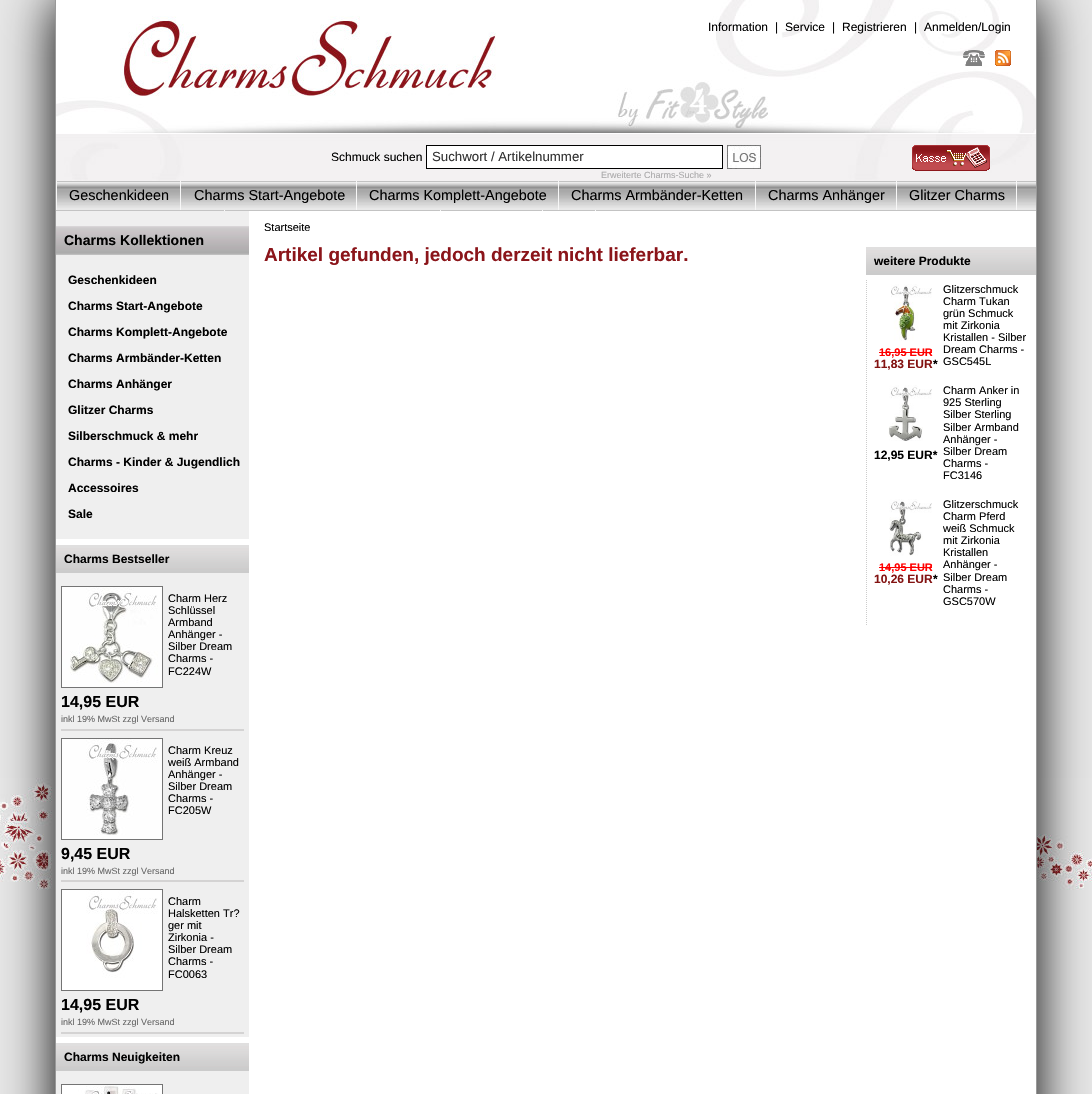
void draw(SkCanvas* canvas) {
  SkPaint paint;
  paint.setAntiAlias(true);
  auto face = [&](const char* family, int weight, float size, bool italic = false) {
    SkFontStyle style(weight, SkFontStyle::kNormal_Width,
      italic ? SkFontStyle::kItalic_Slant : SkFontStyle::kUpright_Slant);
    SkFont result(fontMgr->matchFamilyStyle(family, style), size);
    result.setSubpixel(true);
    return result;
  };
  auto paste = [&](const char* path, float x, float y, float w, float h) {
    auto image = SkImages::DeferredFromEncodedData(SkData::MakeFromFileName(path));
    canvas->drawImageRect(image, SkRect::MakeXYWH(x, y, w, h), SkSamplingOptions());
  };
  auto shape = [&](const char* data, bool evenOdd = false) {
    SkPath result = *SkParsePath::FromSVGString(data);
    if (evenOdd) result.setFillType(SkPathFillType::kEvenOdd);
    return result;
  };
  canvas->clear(0xffe7e7e7);
  paste("img/1.png", 0, 778, 1092, 152);
  paint.setColor(0xff000000);
  paint.setMaskFilter(SkMaskFilter::MakeBlur(kNormal_SkBlurStyle, 25));
  canvas->drawRect(SkRect::MakeXYWH(55, 0, 982, 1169), paint);
  paint.setMaskFilter(nullptr);
  {
    const struct { float x, y, w, h; SkColor color; } items[] = {
      {249, 211, 787, 883, 0xffffffff},
      {1036, 0, 1, 1094, 0xff999999},
      {55, 0, 1, 1094, 0xff999999},
    };
    for (auto [x, y, w, h, color] : items) {
      paint.setColor(color);
      canvas->drawRect(SkRect::MakeXYWH(x, y, w, h), paint);
    }
  }
  paste("img/2.png", 56, 0, 980, 133);
  paste("img/3.png", 963, 50, 22, 16);
  paste("img/4.png", 995, 50, 16, 16);
  paste("img/5.png", 56, 133, 980, 48);
  paint.setColor(0xffffffff);
  canvas->drawRect(SkRect::MakeXYWH(426.5f, 145.5f, 296, 23), paint);
  paint.setStroke(true);
  paint.setStrokeWidth(1);
  paint.setColor(0xff000000);
  canvas->drawRect(SkRect::MakeXYWH(426.5f, 145.5f, 296, 23), paint);
  paste("img/6.png", 727, 145, 34, 24);
  paste("img/7.png", 912, 145, 78, 26);
  paste("img/8.png", 56, 181, 980, 30);
  paint.setStroke(false);
  {
    const struct { float x, y, w, h; SkColor color; } items[] = {
      {56, 181, 1, 29, 0xfff7f7f7},
      {180, 181, 1, 29, 0xfff7f7f7},
      {356, 181, 1, 29, 0xfff7f7f7},
      {558, 181, 1, 29, 0xfff7f7f7},
      {755, 181, 1, 29, 0xfff7f7f7},
      {896, 181, 1, 29, 0xfff7f7f7},
      {1016, 181, 1, 29, 0xfff7f7f7},
      {224, 210, 1, 1, 0xfff7f7f7},
      {440, 210, 1, 1, 0xfff7f7f7},
      {542, 210, 1, 1, 0xfff7f7f7},
      {595, 210, 1, 1, 0xfff7f7f7},
      {56, 211, 193, 883, 0xffefefef},
    };
    for (auto [x, y, w, h, color] : items) {
      paint.setColor(color);
      canvas->drawRect(SkRect::MakeXYWH(x, y, w, h), paint);
    }
  }
  paste("img/9.png", 56, 226, 193, 29);
  paste("img/10.png", 56, 545, 193, 28);
  paint.setColor(0xffffffff);
  canvas->drawRect(SkRect::MakeXYWH(56, 539, 193, 6), paint);
  paint.setColor(0xffd4d3d3);
  canvas->drawRect(SkRect::MakeXYWH(61, 729, 183, 2), paint);
  paint.setStroke(true);
  paint.setColor(0xff747474);
  canvas->drawRect(SkRect::MakeXYWH(61.5f, 586.5f, 101, 101), paint);
  paste("img/11.png", 62, 587, 100, 100);
  paint.setStroke(false);
  paint.setColor(0xffd4d3d3);
  canvas->drawRect(SkRect::MakeXYWH(61, 880, 183, 2), paint);
  paint.setStroke(true);
  paint.setColor(0xff747474);
  canvas->drawRect(SkRect::MakeXYWH(61.5f, 738.5f, 101, 101), paint);
  paste("img/12.png", 62, 739, 100, 100);
  paint.setStroke(false);
  paint.setColor(0xffd4d3d3);
  canvas->drawRect(SkRect::MakeXYWH(61, 1032, 183, 2), paint);
  paint.setStroke(true);
  paint.setColor(0xff747474);
  canvas->drawRect(SkRect::MakeXYWH(61.5f, 889.5f, 101, 101), paint);
  paste("img/13.png", 62, 890, 100, 100);
  paste("img/10.png", 56, 1043, 193, 28);
  paint.setStroke(false);
  paint.setColor(0xffffffff);
  canvas->drawRect(SkRect::MakeXYWH(56, 1037, 193, 6), paint);
  paint.setStroke(true);
  paint.setColor(0xff747474);
  canvas->drawRect(SkRect::MakeXYWH(61.5f, 1084.5f, 101, 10), paint);
  paste("img/14.png", 62, 1085, 100, 9);
  paste("img/15.png", 866, 247, 170, 28);
  paint.setColor(0xffcccccc);
  paint.setPathEffect(SkDashPathEffect::Make({{1, 1}}, 0));
  canvas->drawPath(shape("M866.5 280V626"), paint);
  paint.setPathEffect(nullptr);
  paste("img/16.png", 891, 284, 41, 57);
  paint.setStroke(false);
  paint.setColor(0xffff0000);
  canvas->drawRect(SkRect::MakeXYWH(879, 352, 53, 1), paint);
  paste("img/17.png", 888, 385, 44, 56);
  paste("img/18.png", 889, 499, 43, 57);
  canvas->drawRect(SkRect::MakeXYWH(879, 567, 53, 1), paint);
  auto f0 = face("Liberation Sans", 400, 12);
  paint.setColor(0xff000000);
  {
    const struct { const char* s; float x, y; } items[] = {
      {"Information", 708, 31},
      {"|", 775, 31},
      {"Service", 785, 31},
      {"|", 832, 31},
      {"Registrieren", 842, 31},
      {"|", 914, 31},
      {"Anmelden/Login", 924, 31},
      {"Schmuck suchen", 331, 161},
    };
    for (auto [s, x, y] : items) {
      canvas->drawString(s, x, y, f0, paint);
    }
  }
  auto f1 = face("Liberation Sans", 400, 13.25f);
  paint.setColor(0xff333333);
  canvas->drawString("Suchwort / Artikelnummer", 432, 161, f1, paint);
  auto f2 = face("Liberation Sans", 400, 9);
  paint.setColor(0xffaaa9aa);
  canvas->drawString("Erweiterte Charms-Suche »", 601, 178, f2, paint);
  auto f3 = face("Liberation Sans", 400, 14.4f);
  paint.setColor(0xff000000);
  {
    const struct { const char* s; float x, y; } items[] = {
      {"Geschenkideen", 69, 200},
      {"Charms Start-Angebote", 194, 200},
      {"Charms Komplett-Angebote", 369, 200},
      {"Charms Armbänder-Ketten", 571, 200},
      {"Charms Anhänger", 768, 200},
      {"Glitzer Charms", 909, 200},
    };
    for (auto [s, x, y] : items) {
      canvas->drawString(s, x, y, f3, paint);
    }
  }
  auto f4 = face("Liberation Sans", 700, 14);
  canvas->drawString("Charms Kollektionen", 64, 245, f4, paint);
  auto f5 = face("Liberation Sans", 700, 12);
  {
    const struct { const char* s; float x, y; } items[] = {
      {"Geschenkideen", 68, 284},
      {"Charms Start-Angebote", 68, 310},
      {"Charms Komplett-Angebote", 68, 336},
      {"Charms Armbänder-Ketten", 68, 362},
      {"Charms Anhänger", 68, 388},
      {"Glitzer Charms", 68, 414},
      {"Silberschmuck & mehr", 68, 440},
      {"Charms - Kinder & Jugendlich", 68, 466},
      {"Accessoires", 68, 492},
      {"Sale", 68, 518},
      {"Charms Bestseller", 64, 563},
    };
    for (auto [s, x, y] : items) {
      canvas->drawString(s, x, y, f5, paint);
    }
  }
  auto f6 = face("Liberation Sans", 400, 11);
  {
    const struct { const char* s; float x, y; } items[] = {
      {"Charm Herz", 168, 602},
      {"Schlüssel", 168, 614},
      {"Armband", 168, 626},
      {"Anhänger -", 168, 638},
      {"Silber Dream", 168, 650},
      {"Charms -", 168, 662},
      {"FC224W", 168, 675},
    };
    for (auto [s, x, y] : items) {
      canvas->drawString(s, x, y, f6, paint);
    }
  }
  auto f7 = face("Liberation Sans", 700, 16);
  canvas->drawString("14,95 EUR", 61, 707, f7, paint);
  paint.setColor(0xff666666);
  canvas->drawString("inkl 19% MwSt zzgl Versand", 61, 722, f2, paint);
  paint.setColor(0xff000000);
  {
    const struct { const char* s; float x, y; } items[] = {
      {"Charm Kreuz", 168, 754},
      {"weiß Armband", 168, 766},
      {"Anhänger -", 168, 778},
      {"Silber Dream", 168, 790},
      {"Charms -", 168, 802},
      {"FC205W", 168, 814},
    };
    for (auto [s, x, y] : items) {
      canvas->drawString(s, x, y, f6, paint);
    }
  }
  canvas->drawString("9,45 EUR", 61, 859, f7, paint);
  paint.setColor(0xff666666);
  canvas->drawString("inkl 19% MwSt zzgl Versand", 61, 874, f2, paint);
  paint.setColor(0xff000000);
  {
    const struct { const char* s; float x, y; } items[] = {
      {"Charm", 168, 905},
      {"Halsketten Tr?", 168, 917},
      {"ger mit", 168, 929},
      {"Zirkonia -", 168, 941},
      {"Silber Dream", 168, 953},
      {"Charms -", 168, 965},
      {"FC0063", 168, 978},
    };
    for (auto [s, x, y] : items) {
      canvas->drawString(s, x, y, f6, paint);
    }
  }
  canvas->drawString("14,95 EUR", 61, 1010, f7, paint);
  paint.setColor(0xff666666);
  canvas->drawString("inkl 19% MwSt zzgl Versand", 61, 1025, f2, paint);
  paint.setColor(0xff000000);
  canvas->drawString("Charms Neuigkeiten", 64, 1061, f5, paint);
  canvas->drawString("Startseite", 264, 231, f6, paint);
  paint.setColor(0xffffffff);
  canvas->drawRect(SkRect::MakeXYWH(267, 231, 42, 1), paint);
  auto f8 = face("Liberation Sans", 700, 19);
  paint.setColor(0xff8b151a);
  canvas->drawString("Artikel gefunden, jedoch derzeit nicht lieferbar.", 264, 261, f8, paint);
  paint.setColor(0xff000000);
  canvas->drawString("weitere Produkte", 874, 265, f5, paint);
  auto f9 = face("Liberation Sans", 700, 11);
  paint.setColor(0xffff0000);
  canvas->drawString("16,95 EUR", 879, 356, f9, paint);
  paint.setColor(0xff831312);
  canvas->drawString("11,83 EUR", 874, 368, f5, paint);
  paint.setColor(0xff000000);
  canvas->drawString("*", 933, 368, f5, paint);
  {
    const struct { const char* s; float x, y; } items[] = {
      {"Glitzerschmuck", 943, 293},
      {"Charm Tukan", 943, 305},
      {"grün Schmuck", 943, 317},
      {"mit Zirkonia", 943, 329},
      {"Kristallen - Silber", 943, 341},
      {"Dream Charms -", 943, 353},
      {"GSC545L", 943, 365},
    };
    for (auto [s, x, y] : items) {
      canvas->drawString(s, x, y, f6, paint);
    }
  }
  canvas->drawString("12,95 EUR*", 874, 459, f5, paint);
  {
    const struct { const char* s; float x, y; } items[] = {
      {"Charm Anker in", 943, 394},
      {"925 Sterling", 943, 406},
      {"Silber Sterling", 943, 418},
      {"Silber Armband", 943, 431},
      {"Anhänger -", 943, 443},
      {"Silber Dream", 943, 455},
      {"Charms -", 943, 467},
      {"FC3146", 943, 479},
    };
    for (auto [s, x, y] : items) {
      canvas->drawString(s, x, y, f6, paint);
    }
  }
  paint.setColor(0xffff0000);
  canvas->drawString("14,95 EUR", 879, 571, f9, paint);
  paint.setColor(0xff831312);
  canvas->drawString("10,26 EUR", 874, 583, f5, paint);
  paint.setColor(0xff000000);
  canvas->drawString("*", 933, 583, f5, paint);
  {
    const struct { const char* s; float x, y; } items[] = {
      {"Glitzerschmuck", 943, 508},
      {"Charm Pferd", 943, 520},
      {"weiß Schmuck", 943, 532},
      {"mit Zirkonia", 943, 544},
      {"Kristallen", 943, 556},
      {"Anhänger -", 943, 568},
      {"Silber Dream", 943, 581},
      {"Charms -", 943, 593},
      {"GSC570W", 943, 605},
    };
    for (auto [s, x, y] : items) {
      canvas->drawString(s, x, y, f6, paint);
    }
  }
}
